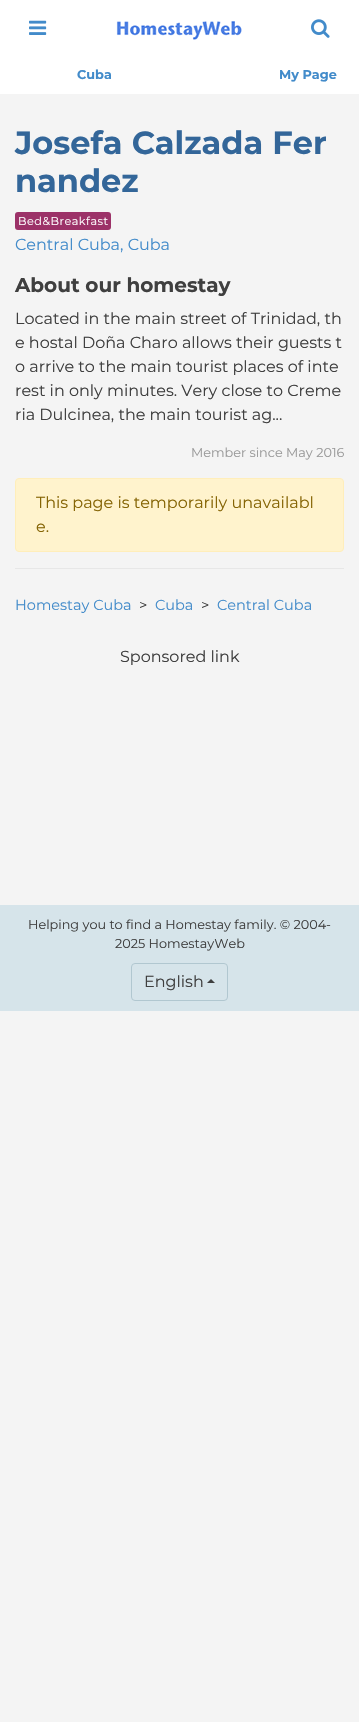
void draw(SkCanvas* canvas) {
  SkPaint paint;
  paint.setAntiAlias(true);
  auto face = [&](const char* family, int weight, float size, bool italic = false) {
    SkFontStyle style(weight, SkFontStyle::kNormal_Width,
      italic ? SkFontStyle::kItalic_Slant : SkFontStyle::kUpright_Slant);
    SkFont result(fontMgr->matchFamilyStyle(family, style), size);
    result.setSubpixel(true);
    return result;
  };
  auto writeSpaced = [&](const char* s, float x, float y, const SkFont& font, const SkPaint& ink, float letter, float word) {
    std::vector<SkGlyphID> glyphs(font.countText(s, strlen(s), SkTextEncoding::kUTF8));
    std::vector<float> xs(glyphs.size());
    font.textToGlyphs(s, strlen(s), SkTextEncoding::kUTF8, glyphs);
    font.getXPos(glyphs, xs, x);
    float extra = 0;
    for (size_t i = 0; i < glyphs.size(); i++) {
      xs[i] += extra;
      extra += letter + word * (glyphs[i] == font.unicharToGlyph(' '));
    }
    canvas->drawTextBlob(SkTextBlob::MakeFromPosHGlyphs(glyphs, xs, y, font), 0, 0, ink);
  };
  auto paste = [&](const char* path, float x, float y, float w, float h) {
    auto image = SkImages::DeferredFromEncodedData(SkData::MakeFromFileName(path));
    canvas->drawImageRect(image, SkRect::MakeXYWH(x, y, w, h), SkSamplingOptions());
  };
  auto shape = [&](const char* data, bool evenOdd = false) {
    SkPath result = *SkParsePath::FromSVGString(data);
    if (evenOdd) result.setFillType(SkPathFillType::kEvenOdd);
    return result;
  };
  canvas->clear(0xfff4f4f4);
  paint.setColor(0xffffffff);
  canvas->drawRect(SkRect::MakeXYWH(0, 0, 359, 94), paint);
  paste("img/1.png", 29, 20, 18, 15);
  paste("img/2.png", 116, 21, 126, 19);
  paste("img/3.png", 311, 19, 19, 19);
  paint.setColor(0xff9c3268);
  canvas->drawRoundRect(SkRect::MakeXYWH(15, 212, 96, 18), 3, 3, paint);
  paint.setColor(0xfffff3cd);
  canvas->drawRoundRect(SkRect::MakeXYWH(15.5f, 478.5f, 328, 73), 3.5f, 3.5f, paint);
  paint.setStroke(true);
  paint.setStrokeWidth(1);
  paint.setColor(0xffffeeba);
  canvas->drawRoundRect(SkRect::MakeXYWH(15.5f, 478.5f, 328, 73), 3.5f, 3.5f, paint);
  paint.setStroke(false);
  paint.setColor(0xffe7e7e7);
  canvas->drawRect(SkRect::MakeXYWH(15, 568, 329, 1), paint);
  paint.setColor(0xffd6e4ea);
  canvas->drawRect(SkRect::MakeXYWH(0, 905, 359, 106), paint);
  paint.setStroke(true);
  paint.setColor(0xffb1c7d0);
  canvas->drawRoundRect(SkRect::MakeXYWH(131.5f, 963.5f, 96, 37), 3.5f, 3.5f, paint);
  paint.setStroke(false);
  paint.setColor(0xff3f3f3f);
  canvas->drawPath(shape("M215 983H207L211 979Z"), paint);
  auto f0 = face("Montserrat", 700, 12.8f);
  paint.setColor(0xff428bca);
  canvas->drawString("Cuba", 77, 79, f0, paint);
  canvas->drawString("My Page", 279, 79, f0, paint);
  auto f1 = face("Montserrat", 700, 32);
  paint.setColor(0xff336699);
  canvas->drawString("Josefa Calzada Fer", 15, 154, f1, paint);
  canvas->drawString("nandez", 15, 192, f1, paint);
  auto f2 = face("Montserrat", 400, 11.25f);
  paint.setColor(0xffffffff);
  writeSpaced("Bed&Breakfast", 18, 225, f2, paint, 0.5f, 0);
  auto f3 = face("Montserrat", 400, 16);
  paint.setColor(0xff428bca);
  canvas->drawString("Central Cuba, Cuba", 15, 250, f3, paint);
  auto f4 = face("Montserrat", 700, 20);
  paint.setColor(0xff3f3f3f);
  canvas->drawString("About our homestay", 15, 292, f4, paint);
  {
    const struct { const char* s; float x, y; } items[] = {
      {"Located in the main street of Trinidad, th", 15, 324},
      {"e hostal Doña Charo allows their guests t", 15, 348},
      {"o arrive to the main tourist places of inte", 15, 372},
      {"rest in only minutes. Very close to Creme", 15, 396},
      {"ria Dulcinea, the main tourist ag...", 15, 420},
    };
    for (auto [s, x, y] : items) {
      canvas->drawString(s, x, y, f3, paint);
    }
  }
  auto f5 = face("Montserrat", 400, 12.8f);
  paint.setColor(0xff999999);
  canvas->drawString("Member since May 2016", 191, 457, f5, paint);
  paint.setColor(0xff856404);
  canvas->drawString("This page is temporarily unavailabl", 36, 508, f3, paint);
  canvas->drawString("e.", 36, 532, f3, paint);
  auto f6 = face("Montserrat", 400, 14.5f);
  paint.setColor(0xff428bca);
  canvas->drawString("Homestay Cuba", 15, 610, f6, paint);
  paint.setColor(0xff3f3f3f);
  canvas->drawString(">", 139, 610, f6, paint);
  paint.setColor(0xff428bca);
  canvas->drawString("Cuba", 155, 610, f6, paint);
  paint.setColor(0xff3f3f3f);
  canvas->drawString(">", 201, 610, f6, paint);
  paint.setColor(0xff428bca);
  canvas->drawString("Central Cuba", 217, 610, f6, paint);
  paint.setColor(0xff3f3f3f);
  canvas->drawString("Sponsored link", 120, 662, f3, paint);
  canvas->drawString("Helping you to find a Homestay family. © 2004-", 28, 929, f5, paint);
  canvas->drawString("2025 HomestayWeb", 115, 948, f5, paint);
  canvas->drawString("English", 144, 987, f3, paint);
}
